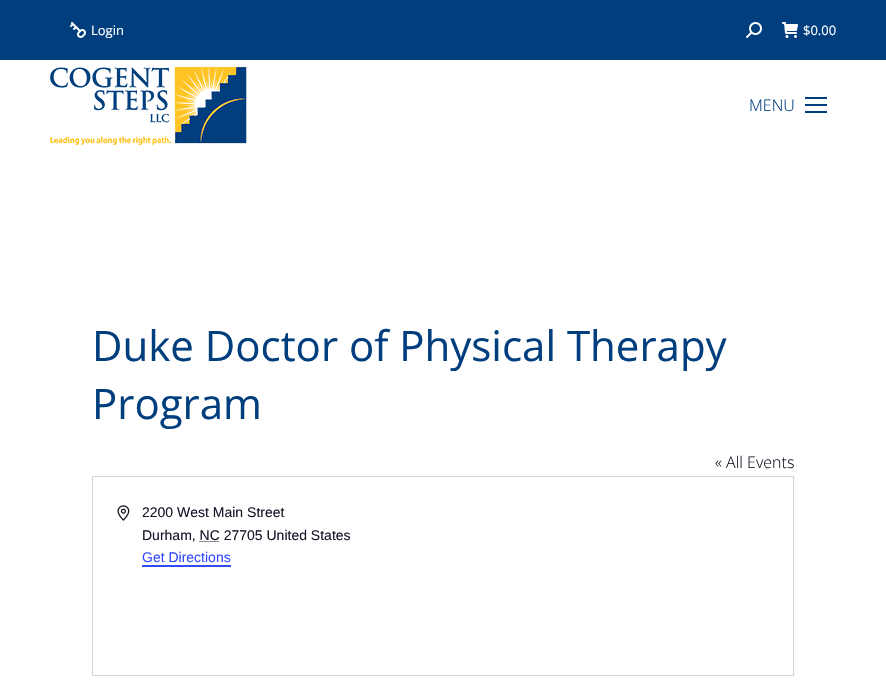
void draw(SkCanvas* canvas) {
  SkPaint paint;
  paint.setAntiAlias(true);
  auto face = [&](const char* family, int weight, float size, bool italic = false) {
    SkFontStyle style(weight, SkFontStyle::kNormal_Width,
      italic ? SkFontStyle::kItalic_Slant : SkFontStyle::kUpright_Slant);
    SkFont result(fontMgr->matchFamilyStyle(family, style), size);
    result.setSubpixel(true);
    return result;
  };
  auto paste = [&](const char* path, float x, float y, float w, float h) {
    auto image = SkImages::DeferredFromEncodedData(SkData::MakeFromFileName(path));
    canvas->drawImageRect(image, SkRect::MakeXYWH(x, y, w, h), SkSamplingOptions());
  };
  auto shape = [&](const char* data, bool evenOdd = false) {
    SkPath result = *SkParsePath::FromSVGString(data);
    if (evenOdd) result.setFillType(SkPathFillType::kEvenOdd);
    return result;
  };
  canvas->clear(0xffffffff);
  paint.setColor(0xff003e7e);
  canvas->drawRect(SkRect::MakeXYWH(0, 0, 886, 60), paint);
  paste("img/1.png", 70, 22, 16, 16);
  paste("img/2.png", 746, 22, 16, 16);
  paste("img/3.png", 782, 22, 16, 16);
  paste("img/4.png", 50, 66, 197, 79);
  {
    const struct { float x, y, w, h; SkColor color; } items[] = {
      {805, 97, 22, 2, 0xff003e7e},
      {805, 104, 22, 2, 0xff003e7e},
      {805, 111, 22, 2, 0xff003e7e},
    };
    for (auto [x, y, w, h, color] : items) {
      paint.setColor(color);
      canvas->drawRect(SkRect::MakeXYWH(x, y, w, h), paint);
    }
  }
  paint.setStroke(true);
  paint.setStrokeWidth(1);
  paint.setColor(0xffd5d5d5);
  canvas->drawRect(SkRect::MakeXYWH(92.5f, 476.5f, 701, 199), paint);
  paste("img/5.png", 117, 505, 13, 16);
  paint.setColor(0xff141827);
  paint.setPathEffect(SkDashPathEffect::Make({{1, 1}}, 0));
  canvas->drawPath(shape("M199.5 541.5H219.5"), paint);
  paint.setPathEffect(nullptr);
  paint.setStroke(false);
  paint.setColor(0xff334aff);
  canvas->drawRect(SkRect::MakeXYWH(142, 565, 89, 2), paint);
  auto f0 = face("Open Sans", 400, 13);
  paint.setColor(0xffffffff);
  canvas->drawString("Login", 91, 35, f0, paint);
  canvas->drawString("$0.00", 803, 35, f0, paint);
  auto f1 = face("Open Sans", 300, 16);
  paint.setColor(0xff003e7e);
  canvas->drawString("MENU", 749, 111, f1, paint);
  auto f2 = face("Open Sans", 400, 42);
  canvas->drawString("Duke Doctor of Physical Therapy", 92, 361, f2, paint);
  canvas->drawString("Program", 92, 419, f2, paint);
  paint.setColor(0xff141827);
  canvas->drawString("« All Events", 715, 468, f1, paint);
  auto f3 = face("Liberation Sans", 400, 14);
  canvas->drawString("2200 West Main Street", 142, 517, f3, paint);
  canvas->drawString("Durham, NC 27705 United States", 142, 540, f3, paint);
  paint.setColor(0xff334aff);
  canvas->drawString("Get Directions", 142, 562, f3, paint);
}
